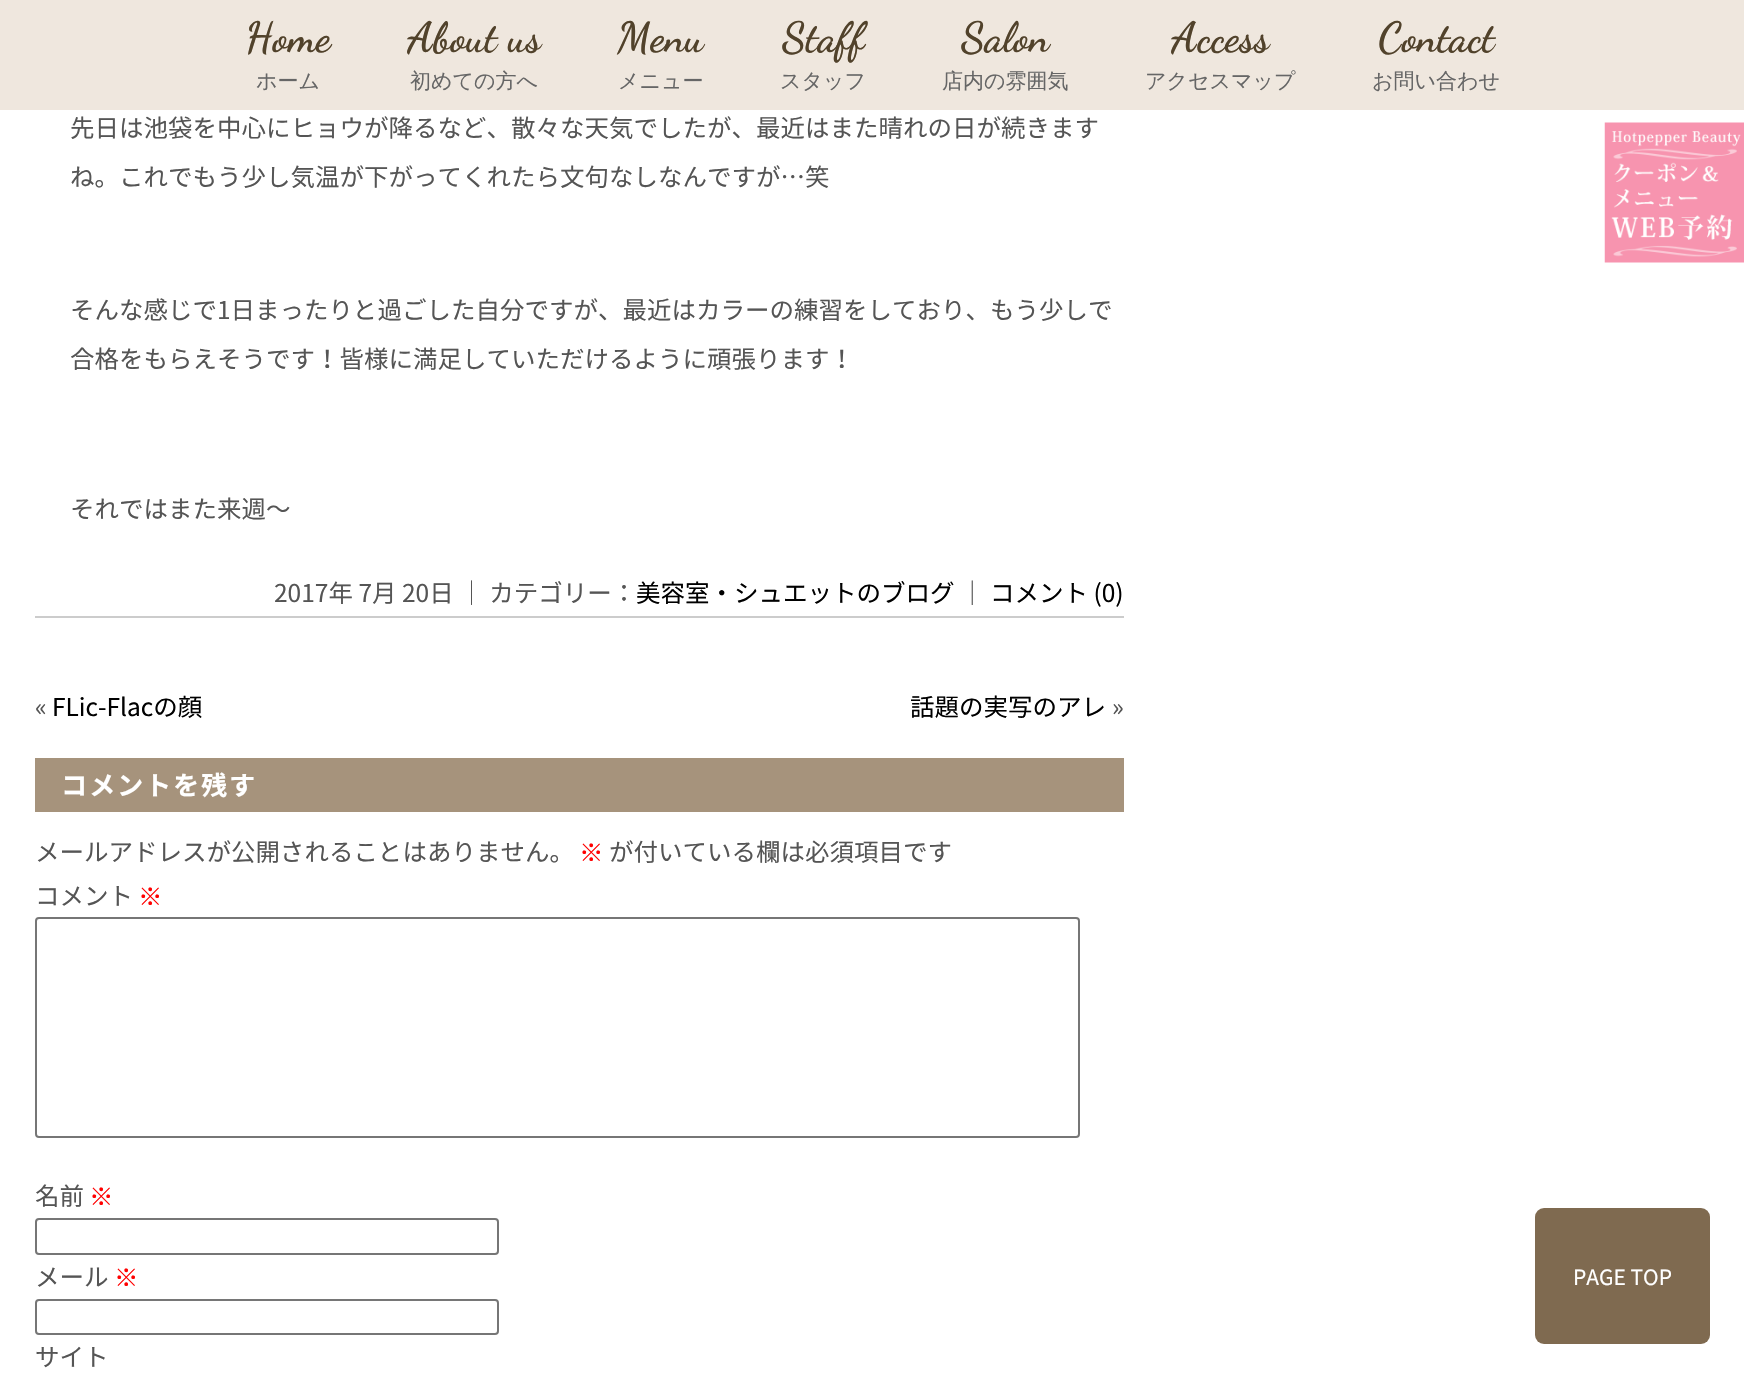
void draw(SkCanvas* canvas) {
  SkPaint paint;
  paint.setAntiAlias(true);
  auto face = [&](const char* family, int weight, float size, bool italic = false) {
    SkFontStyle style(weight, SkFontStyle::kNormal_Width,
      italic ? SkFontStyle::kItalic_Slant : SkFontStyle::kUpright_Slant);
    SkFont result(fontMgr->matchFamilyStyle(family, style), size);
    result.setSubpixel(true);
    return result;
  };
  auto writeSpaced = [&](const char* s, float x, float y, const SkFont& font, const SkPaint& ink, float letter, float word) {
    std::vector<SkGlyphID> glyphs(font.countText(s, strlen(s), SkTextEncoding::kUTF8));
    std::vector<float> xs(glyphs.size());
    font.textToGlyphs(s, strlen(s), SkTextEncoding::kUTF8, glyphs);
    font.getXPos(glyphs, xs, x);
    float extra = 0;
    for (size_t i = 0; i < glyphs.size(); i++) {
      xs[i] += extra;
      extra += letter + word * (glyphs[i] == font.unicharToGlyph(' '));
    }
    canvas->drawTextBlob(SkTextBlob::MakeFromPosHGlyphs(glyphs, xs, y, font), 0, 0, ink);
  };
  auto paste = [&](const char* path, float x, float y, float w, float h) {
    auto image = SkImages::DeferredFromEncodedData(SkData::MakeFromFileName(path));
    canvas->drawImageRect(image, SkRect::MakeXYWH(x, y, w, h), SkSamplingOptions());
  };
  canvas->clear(0xffffffff);
  {
    const struct { float x, y, w, h; SkColor color; } items[] = {
      {0, 0, 1744, 110, 0xffefe7de},
      {35, 616, 1089, 2, 0xffcccccc},
      {35, 758, 1089, 54, 0xffa6937c},
    };
    for (auto [x, y, w, h, color] : items) {
      paint.setColor(color);
      canvas->drawRect(SkRect::MakeXYWH(x, y, w, h), paint);
    }
  }
  paint.setStroke(true);
  paint.setStrokeWidth(2);
  paint.setColor(0xff767676);
  canvas->drawRoundRect(SkRect::MakeXYWH(36, 918, 1043, 219), 3, 3, paint);
  canvas->drawRoundRect(SkRect::MakeXYWH(36, 1219, 462, 35), 3, 3, paint);
  canvas->drawRoundRect(SkRect::MakeXYWH(36, 1300, 462, 34), 3, 3, paint);
  paste("img/1.png", 1604, 122, 140, 141);
  paint.setStroke(false);
  paint.setColor(0xff7f6a50);
  canvas->drawRoundRect(SkRect::MakeXYWH(1535, 1208, 175, 136), 9, 9, paint);
  auto f0 = face("Dancing Script", 700, 42);
  paint.setColor(0xff51422b);
  canvas->drawString("Home", 245, 51, f0, paint);
  auto f1 = face("WenQuanYi Zen Hei", 500, 21);
  paint.setColor(0xff666666);
  canvas->drawString("ホーム", 256, 88, f1, paint);
  paint.setColor(0xff51422b);
  canvas->drawString("About us", 407, 51, f0, paint);
  paint.setColor(0xff666666);
  canvas->drawString("初めての方へ", 410, 88, f1, paint);
  paint.setColor(0xff51422b);
  canvas->drawString("Menu", 617, 51, f0, paint);
  paint.setColor(0xff666666);
  canvas->drawString("メニュー", 618, 88, f1, paint);
  paint.setColor(0xff51422b);
  canvas->drawString("Staff", 782, 51, f0, paint);
  paint.setColor(0xff666666);
  canvas->drawString("スタッフ", 780, 88, f1, paint);
  paint.setColor(0xff51422b);
  canvas->drawString("Salon", 961, 51, f0, paint);
  paint.setColor(0xff666666);
  canvas->drawString("店内の雰囲気", 942, 88, f1, paint);
  paint.setColor(0xff51422b);
  canvas->drawString("Access", 1171, 51, f0, paint);
  paint.setColor(0xff666666);
  canvas->drawString("アクセスマップ", 1145, 88, f1, paint);
  paint.setColor(0xff51422b);
  canvas->drawString("Contact", 1378, 51, f0, paint);
  paint.setColor(0xff666666);
  canvas->drawString("お問い合わせ", 1372, 88, f1, paint);
  auto f2 = face("Noto Sans JP", 400, 24.5f);
  paint.setColor(0xff555555);
  {
    const struct { const char* s; float x, y; } items[] = {
      {"先日は池袋を中心にヒョウが降るなど、散々な天気でしたが、最近はまた晴れの日が続きます", 70, 137},
      {"ね。これでもう少し気温が下がってくれたら文句なしなんですが…笑", 70, 186},
      {"そんな感じで1日まったりと過ごした自分ですが、最近はカラーの練習をしており、もう少しで", 70, 319},
      {"合格をもらえそうです！皆様に満足していただけるように頑張ります！", 70, 368},
      {"それではまた来週〜", 70, 518},
      {"2017年 7月 20日 ｜ カテゴリー：", 274, 602},
    };
    for (auto [s, x, y] : items) {
      canvas->drawString(s, x, y, f2, paint);
    }
  }
  paint.setColor(0xff000000);
  canvas->drawString("美容室・シュエットのブログ", 636, 602, f2, paint);
  paint.setColor(0xff555555);
  canvas->drawString("｜", 960, 602, f2, paint);
  paint.setColor(0xff000000);
  canvas->drawString("コメント (0)", 990, 602, f2, paint);
  paint.setColor(0xff555555);
  canvas->drawString("«", 35, 716, f2, paint);
  paint.setColor(0xff000000);
  canvas->drawString("FLic-Flacの顔", 52, 716, f2, paint);
  canvas->drawString("話題の実写のアレ", 910, 716, f2, paint);
  paint.setColor(0xff555555);
  canvas->drawString("»", 1112, 716, f2, paint);
  auto f3 = face("Noto Sans JP", 700, 26.25f);
  paint.setColor(0xffffffff);
  writeSpaced("コメントを残す", 61, 795, f3, paint, 1.75f, 0);
  paint.setColor(0xff555555);
  canvas->drawString("メールアドレスが公開されることはありません。", 35, 861, f2, paint);
  auto f4 = face("WenQuanYi Zen Hei", 500, 24.5f);
  paint.setColor(0xffff0000);
  canvas->drawString("※", 579, 861, f4, paint);
  paint.setColor(0xff555555);
  canvas->drawString("が付いている欄は必須項目です", 609, 861, f2, paint);
  canvas->drawString("コメント", 35, 905, f2, paint);
  paint.setColor(0xffff0000);
  canvas->drawString("※", 138, 905, f4, paint);
  paint.setColor(0xff555555);
  canvas->drawString("名前", 35, 1205, f2, paint);
  paint.setColor(0xffff0000);
  canvas->drawString("※", 89, 1205, f4, paint);
  paint.setColor(0xff555555);
  canvas->drawString("メール", 35, 1286, f2, paint);
  paint.setColor(0xffff0000);
  canvas->drawString("※", 114, 1286, f4, paint);
  paint.setColor(0xff555555);
  canvas->drawString("サイト", 35, 1366, f2, paint);
  auto f5 = face("Noto Sans JP", 400, 21);
  paint.setColor(0xffffffff);
  canvas->drawString("PAGE TOP", 1573, 1285, f5, paint);
}
